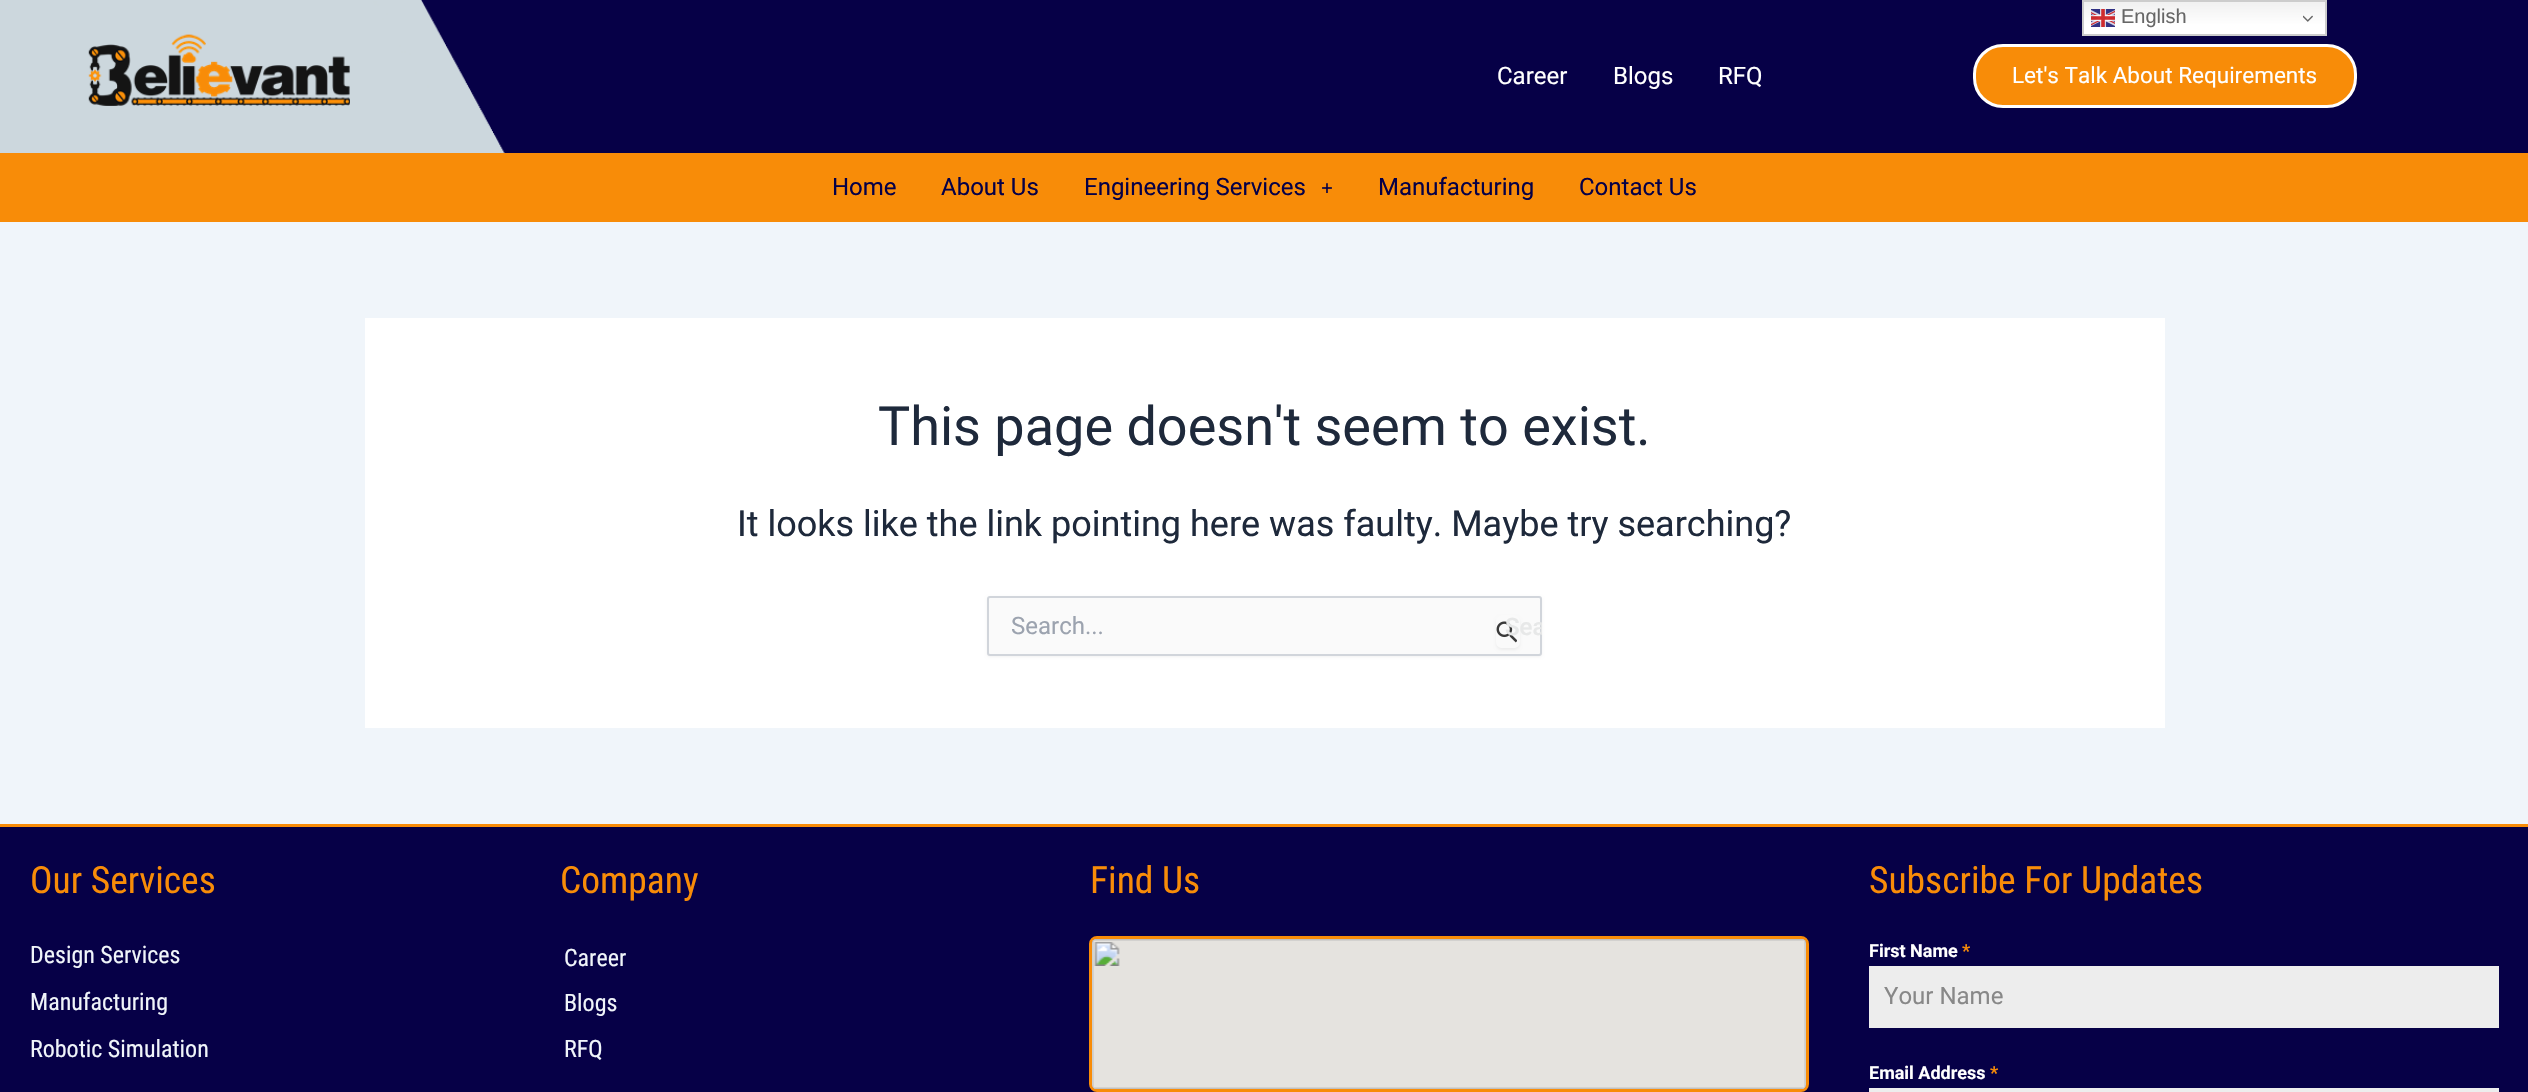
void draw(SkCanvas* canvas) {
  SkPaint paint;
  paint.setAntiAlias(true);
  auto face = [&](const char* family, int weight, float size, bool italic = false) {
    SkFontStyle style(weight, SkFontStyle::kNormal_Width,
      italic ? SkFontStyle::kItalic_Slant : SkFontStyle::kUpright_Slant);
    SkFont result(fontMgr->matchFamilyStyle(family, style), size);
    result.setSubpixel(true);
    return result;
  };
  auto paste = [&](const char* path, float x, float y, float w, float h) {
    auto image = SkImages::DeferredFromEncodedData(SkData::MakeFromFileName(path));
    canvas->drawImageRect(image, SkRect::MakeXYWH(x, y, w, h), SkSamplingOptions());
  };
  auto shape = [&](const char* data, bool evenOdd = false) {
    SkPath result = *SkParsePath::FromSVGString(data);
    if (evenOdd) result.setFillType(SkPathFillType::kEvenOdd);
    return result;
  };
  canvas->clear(0xfff0f5fa);
  paint.setColor(0xff060047);
  canvas->drawRect(SkRect::MakeXYWH(420, 0, 2108, 153), paint);
  {
    const SkColor colors[] = {0xffefefef, 0xffffffff};
    const float stops[] = {0, 0.7f};
    const SkPoint ends[] = {{2204, 0}, {2204, 36}};
    paint.setShader(SkGradientShader::MakeLinear(ends, colors, stops, 2, SkTileMode::kClamp));
    paint.setAlpha(255);
  }
  canvas->drawRect(SkRect::MakeXYWH(2084, 2, 241, 32), paint);
  paint.setStroke(true);
  paint.setStrokeWidth(2);
  paint.setShader(nullptr);
  paint.setColor(0xffcccccc);
  canvas->drawRect(SkRect::MakeXYWH(2083, 1, 243, 34), paint);
  paste("img/1.png", 2091, 9, 24, 18);
  paste("img/2.png", 2303, 15, 10, 7);
  paste("img/3.png", 0, 0, 505, 153);
  paint.setStroke(false);
  paint.setColor(0xfff88c08);
  canvas->drawRoundRect(SkRect::MakeXYWH(1974.5f, 45.5f, 381, 61), 28.5f, 28.5f, paint);
  paint.setStroke(true);
  paint.setStrokeWidth(3);
  paint.setColor(0xffffffff);
  canvas->drawRoundRect(SkRect::MakeXYWH(1974.5f, 45.5f, 381, 61), 28.5f, 28.5f, paint);
  paint.setStroke(false);
  paint.setColor(0xfff88c08);
  canvas->drawRect(SkRect::MakeXYWH(0, 153, 2528, 69), paint);
  paint.setColor(0xffffffff);
  canvas->drawRect(SkRect::MakeXYWH(365, 318, 1800, 410), paint);
  paint.setColor(0x0d000000);
  paint.setMaskFilter(SkMaskFilter::MakeBlur(kNormal_SkBlurStyle, 1.5f));
  canvas->drawRoundRect(SkRect::MakeXYWH(987, 597, 555, 60), 3, 3, paint);
  paint.setMaskFilter(nullptr);
  paint.setColor(0xfffafafa);
  canvas->drawRoundRect(SkRect::MakeXYWH(988, 597, 553, 58), 2, 2, paint);
  paint.setStroke(true);
  paint.setStrokeWidth(2);
  paint.setColor(0xffd1d5db);
  canvas->drawRoundRect(SkRect::MakeXYWH(988, 597, 553, 58), 2, 2, paint);
  canvas->save();
  canvas->clipPath(shape("M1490 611H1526V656H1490ZM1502 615H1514C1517.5 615 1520 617.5 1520 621V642C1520 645.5 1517.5 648 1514 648H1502C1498.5 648 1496 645.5 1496 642V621C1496 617.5 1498.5 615 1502 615Z", true), true);
  paint.setStroke(false);
  paint.setColor(0x0d000000);
  paint.setMaskFilter(SkMaskFilter::MakeBlur(kNormal_SkBlurStyle, 1.5f));
  canvas->drawRoundRect(SkRect::MakeXYWH(1496, 617, 24, 33), 6, 6, paint);
  paint.setMaskFilter(nullptr);
  canvas->restore();
  paste("img/4.png", 1496, 621, 21, 22);
  paint.setColor(0xff060047);
  canvas->drawRect(SkRect::MakeXYWH(0, 827, 2528, 265), paint);
  paint.setColor(0xfff88c08);
  canvas->drawRect(SkRect::MakeXYWH(0, 824, 2528, 3), paint);
  paint.setStroke(true);
  paint.setStrokeWidth(3);
  canvas->drawRoundRect(SkRect::MakeXYWH(1090.5f, 937.5f, 717, 153), 6.5f, 6.5f, paint);
  paste("img/5.png", 1092, 939, 714, 150);
  paint.setStroke(false);
  paint.setColor(0xffededed);
  canvas->drawRect(SkRect::MakeXYWH(1869, 966, 630, 62), paint);
  canvas->drawRect(SkRect::MakeXYWH(1869, 1088, 630, 4), paint);
  auto f0 = face("Liberation Sans", 400, 20);
  paint.setColor(0xff666666);
  canvas->drawString("English", 2121, 23, f0, paint);
  auto f1 = face("Roboto", 400, 24);
  paint.setColor(0xffffffff);
  {
    const struct { const char* s; float x, y; } items[] = {
      {"Career", 1497, 84},
      {"Blogs", 1613, 84},
      {"RFQ", 1718, 84},
    };
    for (auto [s, x, y] : items) {
      canvas->drawString(s, x, y, f1, paint);
    }
  }
  auto f2 = face("Roboto", 400, 22.5f);
  canvas->drawString("Let's Talk About Requirements", 2012, 83, f2, paint);
  paint.setColor(0xff060047);
  {
    const struct { const char* s; float x, y; } items[] = {
      {"Home", 832, 195},
      {"About Us", 941, 195},
      {"Engineering Services", 1084, 195},
    };
    for (auto [s, x, y] : items) {
      canvas->drawString(s, x, y, f1, paint);
    }
  }
  auto f3 = face("Liberation Serif", 700, 21);
  canvas->drawString("+", 1321, 195, f3, paint);
  canvas->drawString("Manufacturing", 1378, 195, f1, paint);
  canvas->drawString("Contact Us", 1579, 195, f1, paint);
  auto f4 = face("Roboto", 400, 54);
  paint.setColor(0xff1e293b);
  canvas->drawString("This page doesn't seem to exist.", 878, 445, f4, paint);
  auto f5 = face("Roboto", 400, 36);
  canvas->drawString("It looks like the link pointing here was faulty. Maybe try searching?", 737, 536, f5, paint);
  paint.setColor(0xff9ca3af);
  canvas->drawString("Search...", 1011, 634, f1, paint);
  canvas->save();
  canvas->clipPath(shape("M1478 596H1539C1540.5 596 1542 597.5 1542 599V656C1542 657.5 1540.5 659 1539 659H1478C1476.5 659 1475 657.5 1475 656V599C1475 597.5 1476.5 596 1478 596Z"), true);
  auto f6 = face("Roboto", 500, 24);
  paint.setColor(0xffe7e8e8);
  canvas->drawString("Sea", 1505, 635, f6, paint);
  canvas->restore();
  auto f7 = face("Roboto Condensed", 400, 37.5f);
  paint.setColor(0xfff88c08);
  canvas->drawString("Our Services", 30, 893, f7, paint);
  auto f8 = face("Roboto Condensed", 400, 24);
  paint.setColor(0xfff0f5fa);
  {
    const struct { const char* s; float x, y; } items[] = {
      {"Design Services", 30, 963},
      {"Manufacturing", 30, 1010},
      {"Robotic Simulation", 30, 1057},
    };
    for (auto [s, x, y] : items) {
      canvas->drawString(s, x, y, f8, paint);
    }
  }
  paint.setColor(0xfff88c08);
  canvas->drawString("Company", 560, 893, f7, paint);
  paint.setColor(0xfff0f5fa);
  {
    const struct { const char* s; float x, y; } items[] = {
      {"Career", 564, 966},
      {"Blogs", 564, 1011},
      {"RFQ", 564, 1057},
    };
    for (auto [s, x, y] : items) {
      canvas->drawString(s, x, y, f8, paint);
    }
  }
  paint.setColor(0xfff88c08);
  canvas->drawString("Find Us", 1090, 893, f7, paint);
  canvas->drawString("Subscribe For Updates", 1869, 893, f7, paint);
  auto f9 = face("Roboto", 700, 18);
  paint.setColor(0xffffffff);
  canvas->drawString("First Name", 1869, 957, f9, paint);
  paint.setColor(0xfff88c08);
  canvas->drawString("*", 1962, 957, f9, paint);
  paint.setColor(0xff888888);
  canvas->drawString("Your Name", 1884, 1004, f1, paint);
  paint.setColor(0xffffffff);
  canvas->drawString("Email Address", 1869, 1079, f9, paint);
  paint.setColor(0xfff88c08);
  canvas->drawString("*", 1990, 1079, f9, paint);
}
